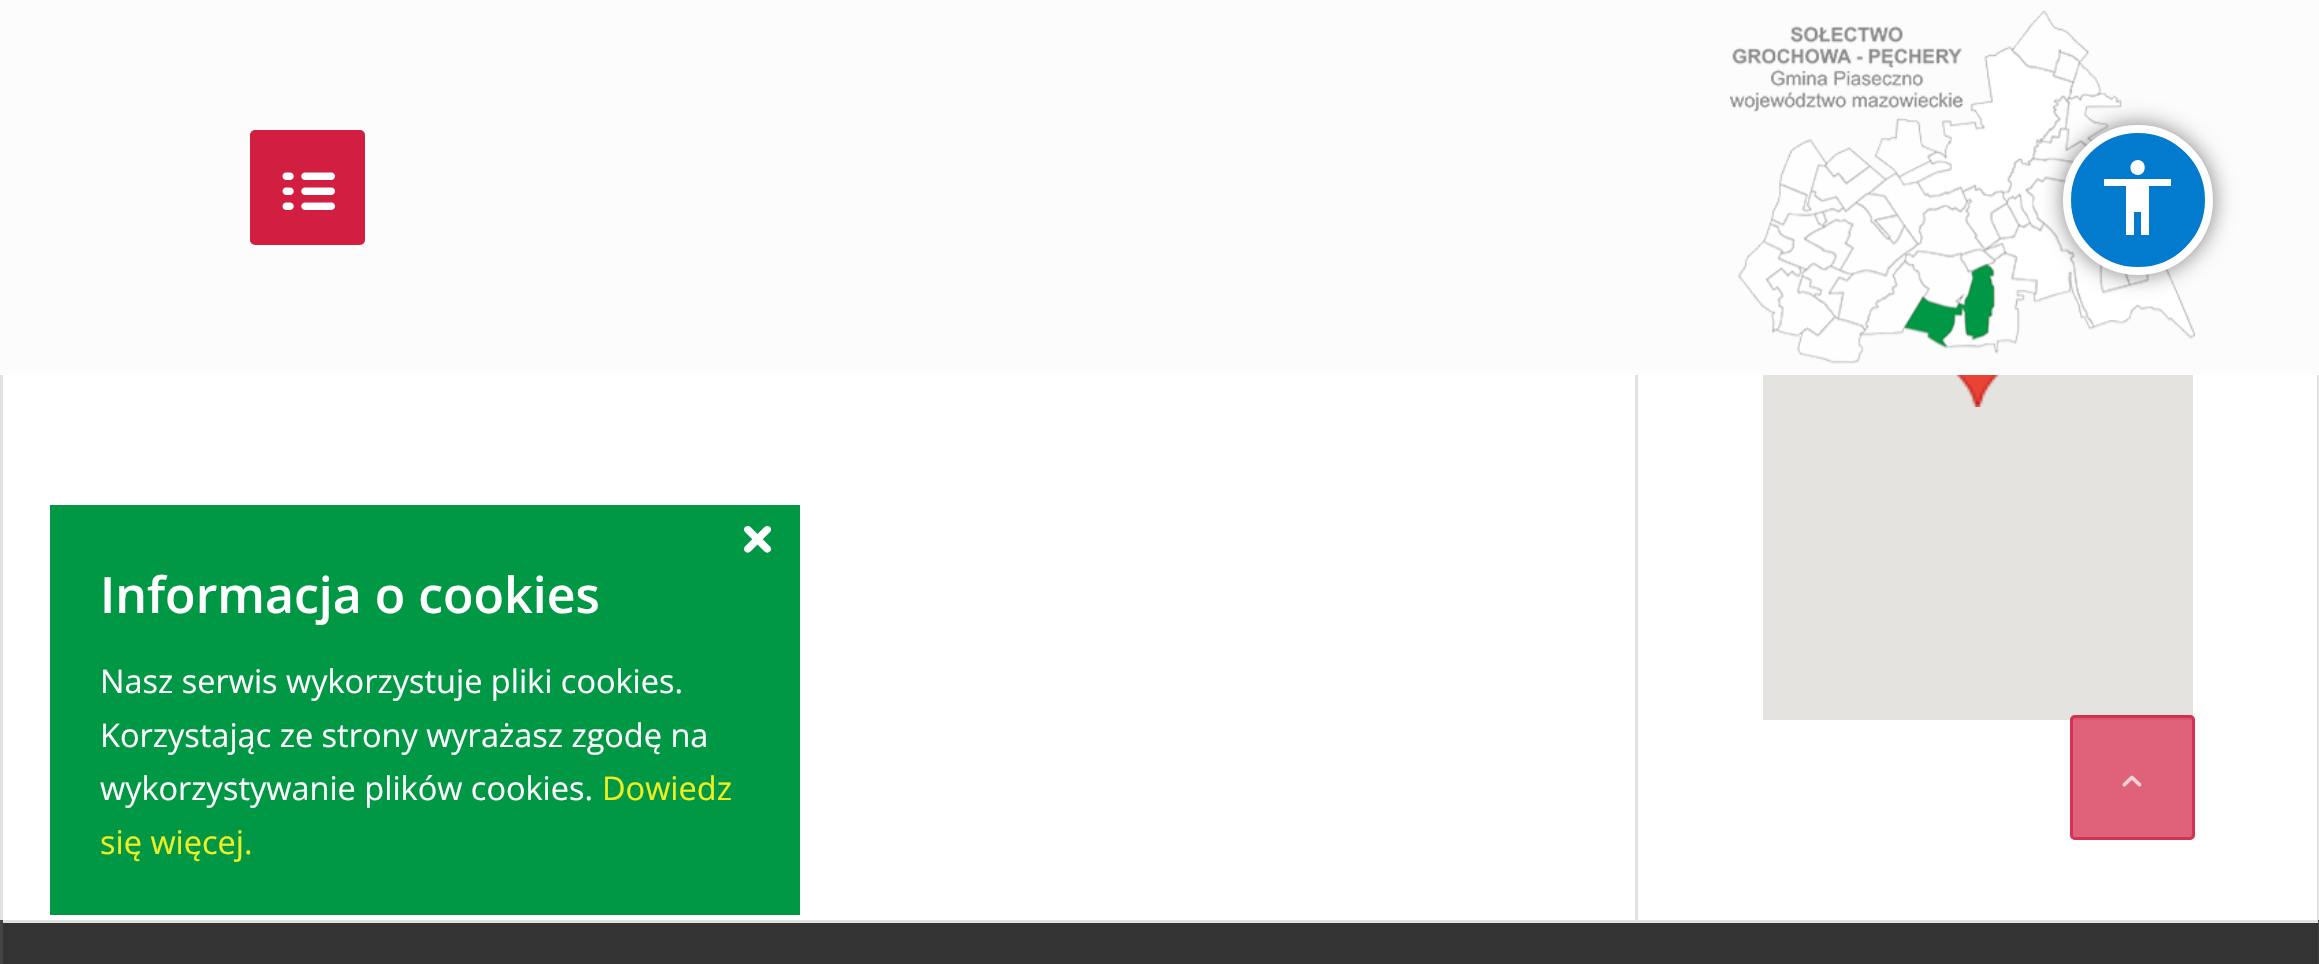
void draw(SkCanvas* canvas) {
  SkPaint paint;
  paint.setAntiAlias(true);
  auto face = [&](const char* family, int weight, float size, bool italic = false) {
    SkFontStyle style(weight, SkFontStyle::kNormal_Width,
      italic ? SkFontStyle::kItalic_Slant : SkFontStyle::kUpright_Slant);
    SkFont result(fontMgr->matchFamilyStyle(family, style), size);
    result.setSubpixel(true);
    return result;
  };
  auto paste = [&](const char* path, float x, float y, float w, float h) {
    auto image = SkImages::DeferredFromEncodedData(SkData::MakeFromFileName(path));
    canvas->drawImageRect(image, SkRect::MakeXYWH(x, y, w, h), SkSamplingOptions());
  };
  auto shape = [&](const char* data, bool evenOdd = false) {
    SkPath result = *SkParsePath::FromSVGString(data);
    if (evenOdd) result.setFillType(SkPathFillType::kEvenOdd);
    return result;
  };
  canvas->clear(0xffffffff);
  paint.setStroke(true);
  paint.setStrokeWidth(3);
  paint.setColor(0xffe1e1e1);
  canvas->drawRect(SkRect::MakeXYWH(1.5f, -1.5f, 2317, 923), paint);
  paint.setStroke(false);
  paint.setColor(0xfffcfcfc);
  canvas->drawRect(SkRect::MakeXYWH(0, 0, 2319, 375), paint);
  paste("img/3.png", 1730, 10, 465, 354);
  paint.setColor(0x80000000);
  paint.setMaskFilter(SkMaskFilter::MakeBlur(kNormal_SkBlurStyle, 11));
  canvas->drawRoundRect(SkRect::MakeXYWH(2063, 125, 150, 150), 75, 75, paint);
  paint.setMaskFilter(nullptr);
  paint.setColor(0xff027bce);
  canvas->drawCircle(2138, 200, 71, paint);
  paint.setStroke(true);
  paint.setStrokeWidth(8);
  paint.setColor(0xffffffff);
  canvas->drawCircle(2138, 200, 71, paint);
  paint.setStroke(false);
  canvas->drawPath(shape("M2138 160C2147 160 2147 175 2138 175C2128 175 2128 160 2138 160ZM2171 186H2149V235H2141V212H2134V235H2126V186H2104V179H2171Z"), paint);
  paint.setColor(0xffe1e1e1);
  canvas->drawRect(SkRect::MakeXYWH(1635, 375, 3, 545), paint);
  paint.setColor(0xffe5e3df);
  canvas->drawRect(SkRect::MakeXYWH(1763, 375, 430, 345), paint);
  paste("img/1.png", 1955, 375, 45, 32);
  {
    const struct { float x, y, w, h; SkColor color; } items[] = {
      {3, 923, 2315, 41, 0xff333333},
      {2318, 920, 1, 44, 0xff444444},
      {0, 920, 3, 44, 0xff444444},
    };
    for (auto [x, y, w, h, color] : items) {
      paint.setColor(color);
      canvas->drawRect(SkRect::MakeXYWH(x, y, w, h), paint);
    }
  }
  paint.setColor(0xffd21e40);
  canvas->drawRoundRect(SkRect::MakeXYWH(251.5f, 131.5f, 112, 112), 3.5f, 3.5f, paint);
  paint.setStroke(true);
  paint.setStrokeWidth(3);
  canvas->drawRoundRect(SkRect::MakeXYWH(251.5f, 131.5f, 112, 112), 3.5f, 3.5f, paint);
  paste("img/2.png", 282, 172, 53, 38);
  paint.setStroke(false);
  paint.setColor(0xff009845);
  canvas->drawRect(SkRect::MakeXYWH(50, 505, 750, 410), paint);
  paint.setColor(0xffffffff);
  canvas->drawPath(shape("M750.5 527L770 546.5C771.5 548 771.5 550 770 551.5C768.5 553 766 553 764.5 551.5L745 532C743.5 530.5 743.5 528.5 745 527C746.5 525.5 749 525.5 750.5 527Z"), paint);
  canvas->drawPath(shape("M745 546.5L764.5 527C766 525.5 768.5 525.5 770 527C771.5 528.5 771.5 530.5 770 532L750.5 551.5C749 553 746.5 553 745 551.5C743.5 550 743.5 548 745 546.5Z"), paint);
  paint.setColor(0xb3d31e41);
  canvas->drawRoundRect(SkRect::MakeXYWH(2070, 715, 125, 125), 5, 5, paint);
  paint.setStroke(true);
  canvas->drawRoundRect(SkRect::MakeXYWH(2071.5f, 716.5f, 122, 122), 3.5f, 3.5f, paint);
  paste("img/4.png", 2122, 775, 20, 12);
  auto f0 = face("Open Sans", 600, 50);
  paint.setStroke(false);
  paint.setColor(0xffffffff);
  canvas->drawString("Informacja o cookies", 100, 613, f0, paint);
  auto f1 = face("Open Sans", 400, 32.5f);
  {
    const struct { const char* s; float x, y; } items[] = {
      {"Nasz serwis wykorzystuje pliki cookies.", 100, 693},
      {"Korzystając ze strony wyrażasz zgodę na", 100, 747},
      {"wykorzystywanie plików cookies.", 100, 800},
    };
    for (auto [s, x, y] : items) {
      canvas->drawString(s, x, y, f1, paint);
    }
  }
  paint.setColor(0xffeeee22);
  canvas->drawString("Dowiedz", 602, 800, f1, paint);
  canvas->drawString("się więcej.", 100, 854, f1, paint);
}
